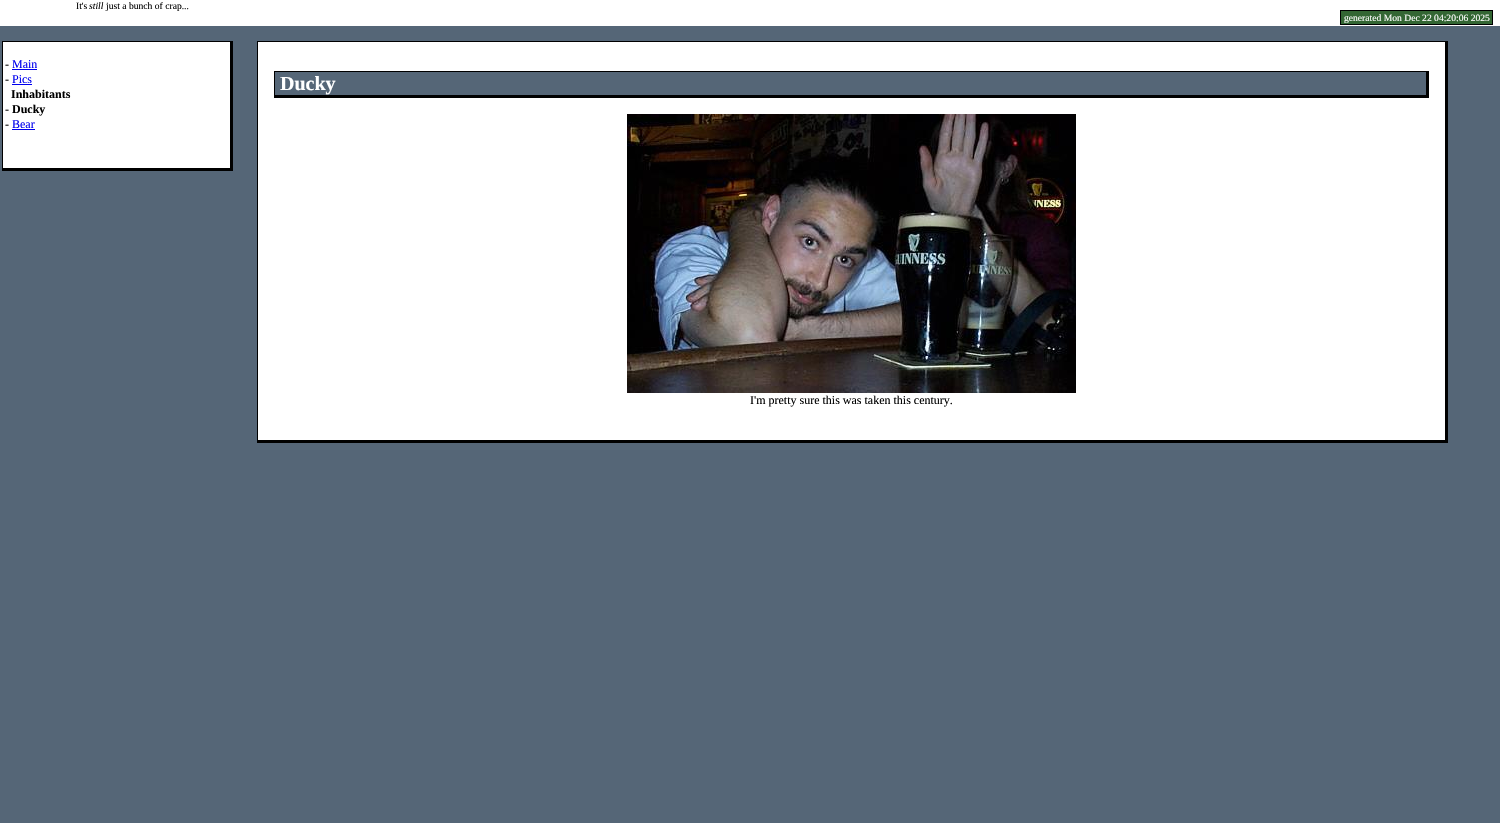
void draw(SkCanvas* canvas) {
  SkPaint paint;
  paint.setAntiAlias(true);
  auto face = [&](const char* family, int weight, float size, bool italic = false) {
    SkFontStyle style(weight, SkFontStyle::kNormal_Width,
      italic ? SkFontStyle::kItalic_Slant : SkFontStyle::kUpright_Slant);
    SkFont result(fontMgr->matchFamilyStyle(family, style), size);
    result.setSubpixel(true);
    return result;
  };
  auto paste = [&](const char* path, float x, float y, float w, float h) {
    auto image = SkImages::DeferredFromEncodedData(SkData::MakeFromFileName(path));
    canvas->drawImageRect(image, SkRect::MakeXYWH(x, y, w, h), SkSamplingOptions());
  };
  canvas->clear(0xff556677);
  paint.setColor(0xffffffff);
  canvas->drawRect(SkRect::MakeXYWH(0, 0, 1500, 26), paint);
  paint.setColor(0xff336633);
  canvas->drawRect(SkRect::MakeXYWH(1340.5f, 10.5f, 152, 14), paint);
  paint.setStroke(true);
  paint.setStrokeWidth(1);
  paint.setColor(0xff000000);
  canvas->drawRect(SkRect::MakeXYWH(1340.5f, 10.5f, 152, 14), paint);
  paint.setStroke(false);
  {
    const struct { float x, y, w, h; SkColor color; } items[] = {
      {3, 42, 227, 126, 0xffffffff},
      {2, 41, 231, 1, 0xff000000},
      {230, 41, 3, 130, 0xff000000},
      {2, 168, 231, 3, 0xff000000},
      {2, 41, 1, 130, 0xff000000},
      {12, 69, 25, 1, 0xff0000ee},
      {12, 84, 20, 1, 0xff0000ee},
      {12, 129, 23, 1, 0xff0000ee},
      {258, 42, 1187, 398, 0xffffffff},
      {257, 41, 1191, 1, 0xff000000},
      {1445, 41, 3, 402, 0xff000000},
      {257, 440, 1191, 3, 0xff000000},
      {257, 41, 1, 402, 0xff000000},
      {275, 72, 1151, 23, 0xff556677},
      {274, 71, 1155, 1, 0xff000000},
      {1426, 71, 3, 27, 0xff000000},
      {274, 95, 1155, 3, 0xff000000},
      {274, 71, 1, 27, 0xff000000},
    };
    for (auto [x, y, w, h, color] : items) {
      paint.setColor(color);
      canvas->drawRect(SkRect::MakeXYWH(x, y, w, h), paint);
    }
  }
  paste("img/1.png", 627, 114, 449, 279);
  auto f0 = face("Liberation Serif", 400, 9.6f);
  canvas->drawString("It's", 76, 9, f0, paint);
  auto f1 = face("Liberation Serif", 400, 9.6f, true);
  canvas->drawString("still", 89, 9, f1, paint);
  canvas->drawString("just a bunch of crap...", 106, 9, f0, paint);
  paint.setColor(0xffffffff);
  canvas->drawString("generated Mon Dec 22 04:20:06 2025", 1344, 21, f0, paint);
  auto f2 = face("Liberation Serif", 400, 12);
  paint.setColor(0xff000000);
  canvas->drawString("-", 5, 68, f2, paint);
  paint.setColor(0xff0000ee);
  canvas->drawString("Main", 12, 68, f2, paint);
  paint.setColor(0xff000000);
  canvas->drawString("-", 5, 83, f2, paint);
  paint.setColor(0xff0000ee);
  canvas->drawString("Pics", 12, 83, f2, paint);
  auto f3 = face("Liberation Serif", 700, 12);
  paint.setColor(0xff000000);
  canvas->drawString("Inhabitants", 11, 98, f3, paint);
  canvas->drawString("-", 5, 113, f2, paint);
  canvas->drawString("Ducky", 12, 113, f3, paint);
  canvas->drawString("-", 5, 128, f2, paint);
  paint.setColor(0xff0000ee);
  canvas->drawString("Bear", 12, 128, f2, paint);
  auto f4 = face("Liberation Serif", 700, 20);
  paint.setColor(0xffffffff);
  canvas->drawString("Ducky", 280, 90, f4, paint);
  paint.setColor(0xff000000);
  canvas->drawString("I'm pretty sure this was taken this century.", 750, 404, f2, paint);
}
